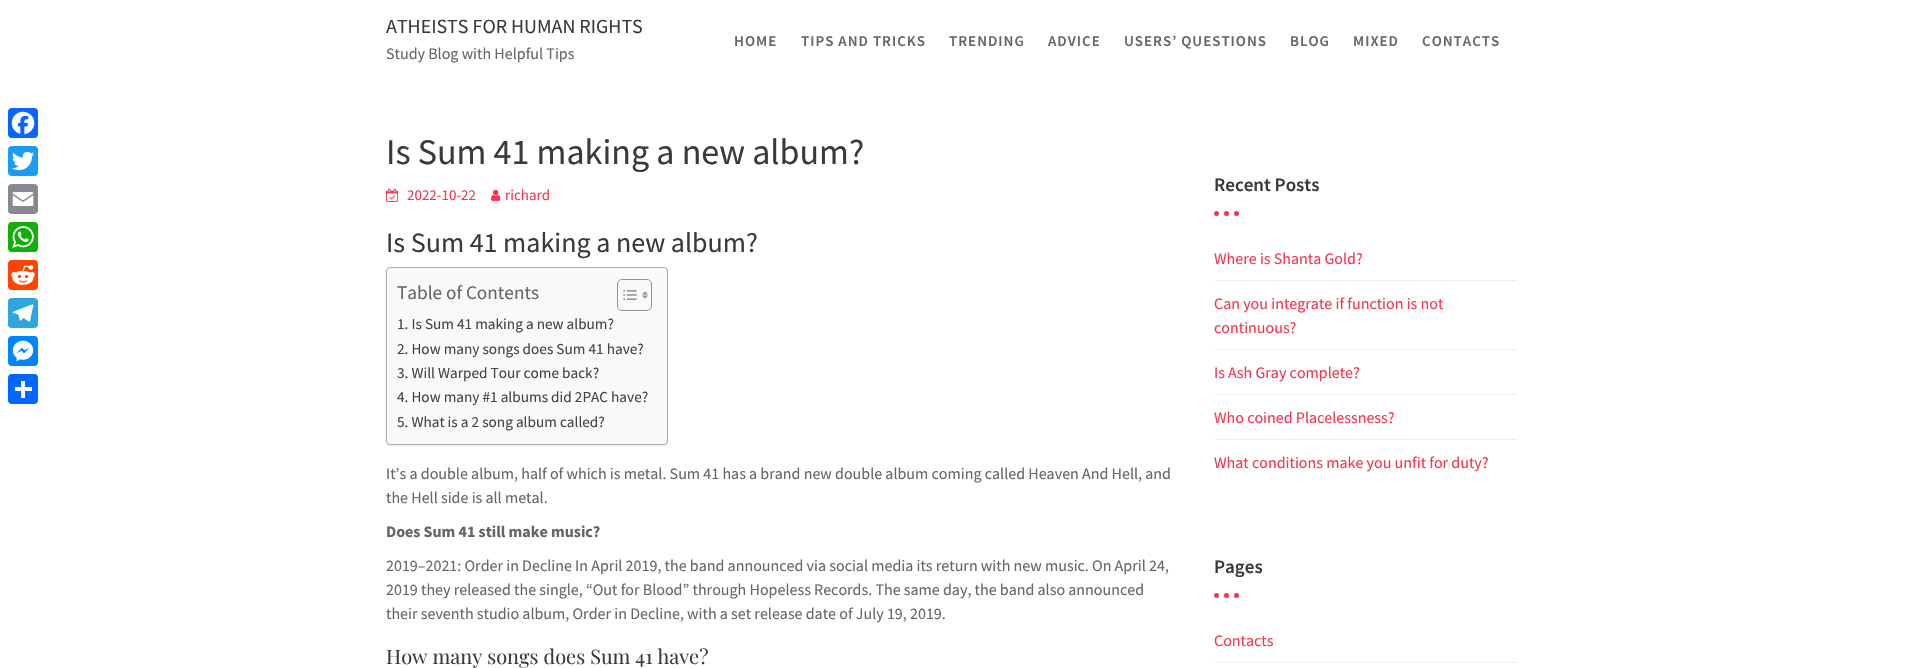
void draw(SkCanvas* canvas) {
  SkPaint paint;
  paint.setAntiAlias(true);
  auto face = [&](const char* family, int weight, float size, bool italic = false) {
    SkFontStyle style(weight, SkFontStyle::kNormal_Width,
      italic ? SkFontStyle::kItalic_Slant : SkFontStyle::kUpright_Slant);
    SkFont result(fontMgr->matchFamilyStyle(family, style), size);
    result.setSubpixel(true);
    return result;
  };
  auto writeSpaced = [&](const char* s, float x, float y, const SkFont& font, const SkPaint& ink, float letter, float word) {
    std::vector<SkGlyphID> glyphs(font.countText(s, strlen(s), SkTextEncoding::kUTF8));
    std::vector<float> xs(glyphs.size());
    font.textToGlyphs(s, strlen(s), SkTextEncoding::kUTF8, glyphs);
    font.getXPos(glyphs, xs, x);
    float extra = 0;
    for (size_t i = 0; i < glyphs.size(); i++) {
      xs[i] += extra;
      extra += letter + word * (glyphs[i] == font.unicharToGlyph(' '));
    }
    canvas->drawTextBlob(SkTextBlob::MakeFromPosHGlyphs(glyphs, xs, y, font), 0, 0, ink);
  };
  auto paste = [&](const char* path, float x, float y, float w, float h) {
    auto image = SkImages::DeferredFromEncodedData(SkData::MakeFromFileName(path));
    canvas->drawImageRect(image, SkRect::MakeXYWH(x, y, w, h), SkSamplingOptions());
  };
  auto shape = [&](const char* data, bool evenOdd = false) {
    SkPath result = *SkParsePath::FromSVGString(data);
    if (evenOdd) result.setFillType(SkPathFillType::kEvenOdd);
    return result;
  };
  canvas->clear(0xffffffff);
  paint.setColor(0xff0866ff);
  canvas->drawRoundRect(SkRect::MakeXYWH(8, 108, 30, 30), 4, 4, paint);
  paste("img/1.png", 11, 111, 24, 24);
  paint.setColor(0xff1d9bf0);
  canvas->drawRoundRect(SkRect::MakeXYWH(8, 146, 30, 30), 4, 4, paint);
  paste("img/2.png", 12, 151, 23, 20);
  paint.setColor(0xff888990);
  canvas->drawRoundRect(SkRect::MakeXYWH(8, 184, 30, 30), 4, 4, paint);
  paste("img/3.png", 12, 192, 22, 14);
  paint.setColor(0xff12af0a);
  canvas->drawRoundRect(SkRect::MakeXYWH(8, 222, 30, 30), 4, 4, paint);
  paste("img/4.png", 12, 226, 22, 22);
  paint.setColor(0xffff4500);
  canvas->drawRoundRect(SkRect::MakeXYWH(8, 260, 30, 30), 4, 4, paint);
  paste("img/5.png", 11, 265, 24, 20);
  paint.setColor(0xff2ca5e0);
  canvas->drawRoundRect(SkRect::MakeXYWH(8, 298, 30, 30), 4, 4, paint);
  paste("img/6.png", 12, 304, 22, 18);
  paint.setColor(0xff0084ff);
  canvas->drawRoundRect(SkRect::MakeXYWH(8, 336, 30, 30), 4, 4, paint);
  paste("img/7.png", 12, 340, 22, 22);
  paint.setColor(0xff0166ff);
  canvas->drawRoundRect(SkRect::MakeXYWH(8, 374, 30, 30), 4, 4, paint);
  paint.setColor(0xffffffff);
  canvas->drawRect(SkRect::MakeXYWH(21, 381, 4, 17), paint);
  canvas->drawRect(SkRect::MakeXYWH(15, 387, 17, 4), paint);
  paste("img/8.png", 386, 188, 13, 14);
  paste("img/9.png", 491, 189, 10, 12);
  paint.setColor(0x0d000000);
  paint.setMaskFilter(SkMaskFilter::MakeBlur(kNormal_SkBlurStyle, 0.5f));
  canvas->drawRoundRect(SkRect::MakeXYWH(386, 268, 282, 178), 4, 4, paint);
  paint.setMaskFilter(nullptr);
  paint.setColor(0xfff9f9f9);
  canvas->drawRoundRect(SkRect::MakeXYWH(386.5f, 267.5f, 281, 177), 3.5f, 3.5f, paint);
  paint.setStroke(true);
  paint.setStrokeWidth(1);
  paint.setColor(0xffaaaaaa);
  canvas->drawRoundRect(SkRect::MakeXYWH(386.5f, 267.5f, 281, 177), 3.5f, 3.5f, paint);
  paint.setColor(0xff999191);
  canvas->drawRoundRect(SkRect::MakeXYWH(617.5f, 279.5f, 34, 31), 4.5f, 4.5f, paint);
  paste("img/10.png", 623, 290, 14, 10);
  paste("img/11.png", 642, 291, 6, 8);
  paint.setStroke(false);
  paint.setColor(0xfff4364f);
  canvas->drawCircle(1216.5f, 213.5f, 2.5f, paint);
  canvas->drawCircle(1236.5f, 213.5f, 2.5f, paint);
  canvas->drawCircle(1226.5f, 213.5f, 2.5f, paint);
  paint.setStroke(true);
  paint.setColor(0xffdfdfdf);
  paint.setPathEffect(SkDashPathEffect::Make({{1, 1}}, 0));
  canvas->drawPath(shape("M1214 280.5H1518"), paint);
  paint.setPathEffect(nullptr);
  paint.setPathEffect(SkDashPathEffect::Make({{1, 1}}, 0));
  canvas->drawPath(shape("M1214 349.5H1518"), paint);
  paint.setPathEffect(nullptr);
  paint.setPathEffect(SkDashPathEffect::Make({{1, 1}}, 0));
  canvas->drawPath(shape("M1214 394.5H1518"), paint);
  paint.setPathEffect(nullptr);
  paint.setPathEffect(SkDashPathEffect::Make({{1, 1}}, 0));
  canvas->drawPath(shape("M1214 439.5H1518"), paint);
  paint.setPathEffect(nullptr);
  paint.setStroke(false);
  paint.setColor(0xfff4364f);
  canvas->drawCircle(1216.5f, 595.5f, 2.5f, paint);
  canvas->drawCircle(1236.5f, 595.5f, 2.5f, paint);
  canvas->drawCircle(1226.5f, 595.5f, 2.5f, paint);
  paint.setStroke(true);
  paint.setColor(0xffdfdfdf);
  paint.setPathEffect(SkDashPathEffect::Make({{1, 1}}, 0));
  canvas->drawPath(shape("M1214 662.5H1518"), paint);
  paint.setPathEffect(nullptr);
  auto f0 = face("Source Sans Pro", 400, 20);
  paint.setStroke(false);
  paint.setColor(0xff3a3a3a);
  canvas->drawString("ATHEISTS FOR HUMAN RIGHTS", 386, 33, f0, paint);
  auto f1 = face("Source Sans Pro", 400, 16);
  paint.setColor(0xff666666);
  canvas->drawString("Study Blog with Helpful Tips", 386, 59, f1, paint);
  auto f2 = face("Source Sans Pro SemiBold", 600, 15);
  {
    const struct { const char* s; float x, y; } items[] = {
      {"HOME", 734, 46},
      {"TIPS AND TRICKS", 801, 46},
      {"TRENDING", 949, 46},
      {"ADVICE", 1048, 46},
      {"USERS’ QUESTIONS", 1124, 46},
      {"BLOG", 1290, 46},
      {"MIXED", 1353, 46},
      {"CONTACTS", 1422, 46},
    };
    for (auto [s, x, y] : items) {
      writeSpaced(s, x, y, f2, paint, 1, 0);
    }
  }
  auto f3 = face("Source Sans Pro", 400, 36);
  paint.setColor(0xff3a3a3a);
  canvas->drawString("Is Sum 41 making a new album?", 386, 164, f3, paint);
  auto f4 = face("Source Sans Pro", 400, 15);
  paint.setColor(0xfff4364f);
  canvas->drawString("2022-10-22", 407, 200, f4, paint);
  canvas->drawString("richard", 505, 200, f4, paint);
  auto f5 = face("Source Sans Pro", 400, 28);
  paint.setColor(0xff3a3a3a);
  canvas->drawString("Is Sum 41 making a new album?", 386, 252, f5, paint);
  auto f6 = face("Source Sans Pro", 400, 19.25f);
  paint.setColor(0xff666666);
  canvas->drawString("Table of Contents", 397, 299, f6, paint);
  auto f7 = face("Source Sans Pro", 400, 15.25f);
  paint.setColor(0xff444444);
  {
    const struct { const char* s; float x, y; } items[] = {
      {"1. Is Sum 41 making a new album?", 397, 329},
      {"2. How many songs does Sum 41 have?", 397, 354},
      {"3. Will Warped Tour come back?", 397, 378},
      {"4. How many #1 albums did 2PAC have?", 397, 402},
      {"5. What is a 2 song album called?", 397, 427},
    };
    for (auto [s, x, y] : items) {
      canvas->drawString(s, x, y, f7, paint);
    }
  }
  paint.setColor(0xff666666);
  canvas->drawString("It’s a double album, half of which is metal. Sum 41 has a brand new double album coming called Heaven And Hell, and", 386, 479, f1, paint);
  canvas->drawString("the Hell side is all metal.", 386, 503, f1, paint);
  auto f8 = face("Source Sans Pro", 700, 16);
  canvas->drawString("Does Sum 41 still make music?", 386, 537, f8, paint);
  {
    const struct { const char* s; float x, y; } items[] = {
      {"2019–2021: Order in Decline In April 2019, the band announced via social media its return with new music. On April 24,", 386, 571},
      {"2019 they released the single, “Out for Blood” through Hopeless Records. The same day, the band also announced", 386, 595},
      {"their seventh studio album, Order in Decline, with a set release date of July 19, 2019.", 386, 619},
    };
    for (auto [s, x, y] : items) {
      canvas->drawString(s, x, y, f1, paint);
    }
  }
  auto f9 = face("Playfair Display", 400, 20);
  paint.setColor(0xff3a3a3a);
  canvas->drawString("How many songs does Sum 41 have?", 386, 664, f9, paint);
  auto f10 = face("Source Sans Pro SemiBold", 600, 19);
  canvas->drawString("Recent Posts", 1214, 191, f10, paint);
  paint.setColor(0xfff4364f);
  {
    const struct { const char* s; float x, y; } items[] = {
      {"Where is Shanta Gold?", 1214, 264},
      {"Can you integrate if function is not", 1214, 309},
      {"continuous?", 1214, 333},
      {"Is Ash Gray complete?", 1214, 378},
      {"Who coined Placelessness?", 1214, 423},
      {"What conditions make you unfit for duty?", 1214, 468},
    };
    for (auto [s, x, y] : items) {
      canvas->drawString(s, x, y, f1, paint);
    }
  }
  paint.setColor(0xff3a3a3a);
  canvas->drawString("Pages", 1214, 573, f10, paint);
  paint.setColor(0xfff4364f);
  canvas->drawString("Contacts", 1214, 646, f1, paint);
}
